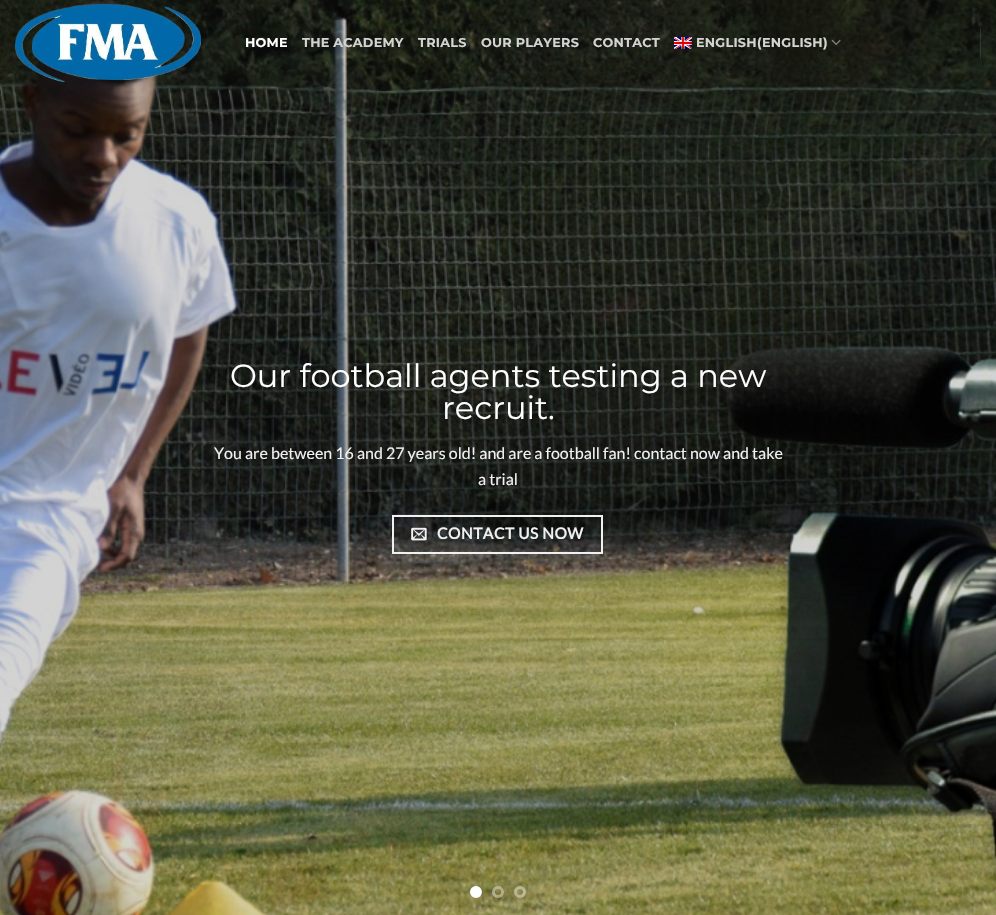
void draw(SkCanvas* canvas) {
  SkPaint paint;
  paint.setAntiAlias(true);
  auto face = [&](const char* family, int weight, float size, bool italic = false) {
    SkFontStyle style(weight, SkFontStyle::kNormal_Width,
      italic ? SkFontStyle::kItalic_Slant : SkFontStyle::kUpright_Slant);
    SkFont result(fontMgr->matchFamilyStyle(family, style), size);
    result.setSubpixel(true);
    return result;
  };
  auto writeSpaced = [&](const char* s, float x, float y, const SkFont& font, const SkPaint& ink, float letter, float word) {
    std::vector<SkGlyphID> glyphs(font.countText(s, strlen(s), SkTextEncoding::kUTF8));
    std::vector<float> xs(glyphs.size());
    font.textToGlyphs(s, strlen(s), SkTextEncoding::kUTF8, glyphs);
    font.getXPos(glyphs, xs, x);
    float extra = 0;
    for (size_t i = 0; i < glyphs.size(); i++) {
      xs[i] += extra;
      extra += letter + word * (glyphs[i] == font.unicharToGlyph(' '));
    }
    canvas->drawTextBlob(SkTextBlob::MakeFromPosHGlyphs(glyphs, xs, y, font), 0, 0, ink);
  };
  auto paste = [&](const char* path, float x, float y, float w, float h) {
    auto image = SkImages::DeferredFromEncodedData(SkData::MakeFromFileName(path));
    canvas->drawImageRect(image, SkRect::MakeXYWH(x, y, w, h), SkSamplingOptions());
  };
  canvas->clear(0xffffffff);
  paste("img/4.png", 0, 0, 996, 915);
  paste("img/1.png", 15, 4, 186, 78);
  paste("img/2.png", 674, 37, 18, 12);
  paste("img/3.png", 831, 39, 10, 6);
  paint.setColor(0x1affffff);
  canvas->drawRect(SkRect::MakeXYWH(980, 28, 1, 30), paint);
  paint.setStroke(true);
  paint.setStrokeWidth(2);
  paint.setColor(0xfff1f1f1);
  canvas->drawRect(SkRect::MakeXYWH(393, 516, 209, 37), paint);
  paste("img/5.png", 411, 527, 16, 14);
  paint.setStroke(false);
  paint.setColor(0xffffffff);
  canvas->drawCircle(476, 892, 4.5f, paint);
  paint.setStroke(true);
  paint.setStrokeWidth(3);
  canvas->drawCircle(476, 892, 4.5f, paint);
  paint.setColor(0x66ffffff);
  canvas->drawCircle(498, 892, 4.5f, paint);
  canvas->drawCircle(520, 892, 4.5f, paint);
  auto f0 = face("Montserrat", 700, 12.75f);
  paint.setStroke(false);
  paint.setColor(0xffffffff);
  writeSpaced("HOME", 245, 47, f0, paint, 0.25f, 0);
  paint.setColor(0xffd3d4d2);
  {
    const struct { const char* s; float x, y; } items[] = {
      {"THE ACADEMY", 302, 47},
      {"TRIALS", 418, 47},
      {"OUR PLAYERS", 481, 47},
      {"CONTACT", 593, 47},
      {"ENGLISH", 696, 47},
      {"(", 757, 47},
      {"ENGLISH", 762, 47},
      {")", 823, 47},
    };
    for (auto [s, x, y] : items) {
      writeSpaced(s, x, y, f0, paint, 0.25f, 0);
    }
  }
  auto f1 = face("Montserrat", 400, 32);
  paint.setColor(0xffffffff);
  canvas->drawString("Our football agents testing a new", 230, 387, f1, paint);
  canvas->drawString("recruit.", 442, 419, f1, paint);
  auto f2 = face("Lato", 400, 16);
  paint.setColor(0xfff1f1f1);
  canvas->drawString("You are between 16 and 27 years old! and are a football fan! contact now and take", 214, 459, f2, paint);
  canvas->drawString("a trial", 478, 485, f2, paint);
  auto f3 = face("Lato", 700, 15.5f);
  writeSpaced("CONTACT US NOW", 437, 539, f3, paint, 0.5f, 0);
}
